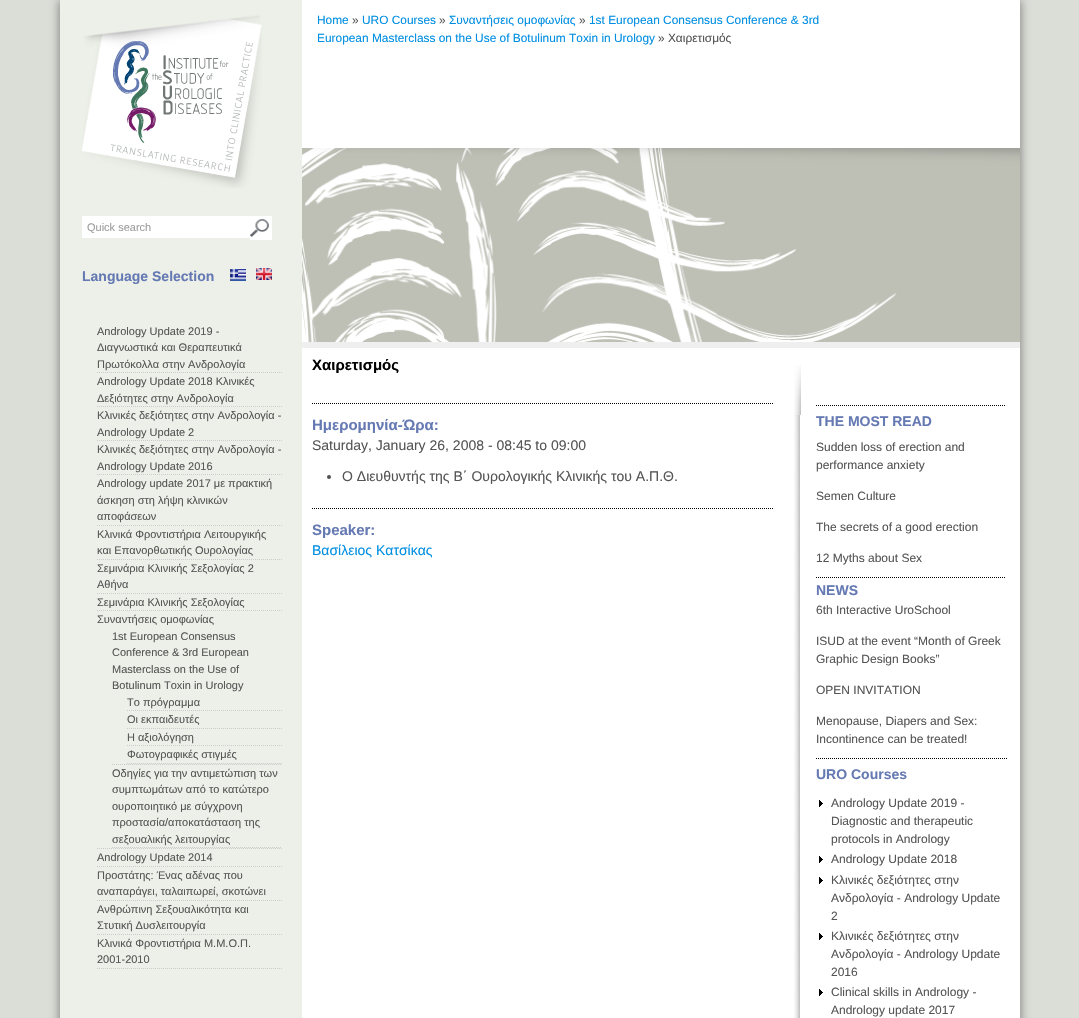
void draw(SkCanvas* canvas) {
  SkPaint paint;
  paint.setAntiAlias(true);
  auto face = [&](const char* family, int weight, float size, bool italic = false) {
    SkFontStyle style(weight, SkFontStyle::kNormal_Width,
      italic ? SkFontStyle::kItalic_Slant : SkFontStyle::kUpright_Slant);
    SkFont result(fontMgr->matchFamilyStyle(family, style), size);
    result.setSubpixel(true);
    return result;
  };
  auto paste = [&](const char* path, float x, float y, float w, float h) {
    auto image = SkImages::DeferredFromEncodedData(SkData::MakeFromFileName(path));
    canvas->drawImageRect(image, SkRect::MakeXYWH(x, y, w, h), SkSamplingOptions());
  };
  auto shape = [&](const char* data, bool evenOdd = false) {
    SkPath result = *SkParsePath::FromSVGString(data);
    if (evenOdd) result.setFillType(SkPathFillType::kEvenOdd);
    return result;
  };
  canvas->clear(0xffdbddd7);
  paint.setColor(0xb34c4c4c);
  paint.setMaskFilter(SkMaskFilter::MakeBlur(kNormal_SkBlurStyle, 5));
  canvas->drawRect(SkRect::MakeXYWH(60, 0, 960, 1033), paint);
  paint.setMaskFilter(nullptr);
  paint.setColor(0xffedf0e8);
  canvas->drawRect(SkRect::MakeXYWH(60, 0, 242, 1018), paint);
  paste("img/1.png", 82, 15, 180, 173);
  paint.setColor(0xffffffff);
  canvas->drawRect(SkRect::MakeXYWH(82, 216, 168, 22), paint);
  canvas->drawRect(SkRect::MakeXYWH(250, 216, 22, 24), paint);
  paste("img/2.png", 250, 219, 19, 18);
  paste("img/3.png", 230, 269, 16, 12);
  paste("img/4.png", 256, 268, 16, 12);
  paint.setStroke(true);
  paint.setStrokeWidth(1);
  paint.setColor(0xffcccccc);
  paint.setPathEffect(SkDashPathEffect::Make({{1, 1}}, 0));
  canvas->drawPath(shape("M97 372.5H282"), paint);
  paint.setPathEffect(nullptr);
  paint.setPathEffect(SkDashPathEffect::Make({{1, 1}}, 0));
  canvas->drawPath(shape("M97 406.5H282"), paint);
  paint.setPathEffect(nullptr);
  paint.setPathEffect(SkDashPathEffect::Make({{1, 1}}, 0));
  canvas->drawPath(shape("M97 440.5H282"), paint);
  paint.setPathEffect(nullptr);
  paint.setPathEffect(SkDashPathEffect::Make({{1, 1}}, 0));
  canvas->drawPath(shape("M97 474.5H282"), paint);
  paint.setPathEffect(nullptr);
  paint.setPathEffect(SkDashPathEffect::Make({{1, 1}}, 0));
  canvas->drawPath(shape("M97 525.5H282"), paint);
  paint.setPathEffect(nullptr);
  paint.setPathEffect(SkDashPathEffect::Make({{1, 1}}, 0));
  canvas->drawPath(shape("M97 559.5H282"), paint);
  paint.setPathEffect(nullptr);
  paint.setPathEffect(SkDashPathEffect::Make({{1, 1}}, 0));
  canvas->drawPath(shape("M97 593.5H282"), paint);
  paint.setPathEffect(nullptr);
  paint.setPathEffect(SkDashPathEffect::Make({{1, 1}}, 0));
  canvas->drawPath(shape("M97 610.5H282"), paint);
  paint.setPathEffect(nullptr);
  paint.setPathEffect(SkDashPathEffect::Make({{1, 1}}, 0));
  canvas->drawPath(shape("M97 848.5H282"), paint);
  paint.setPathEffect(nullptr);
  paint.setPathEffect(SkDashPathEffect::Make({{1, 1}}, 0));
  canvas->drawPath(shape("M112 764.5H282"), paint);
  paint.setPathEffect(nullptr);
  paint.setPathEffect(SkDashPathEffect::Make({{1, 1}}, 0));
  canvas->drawPath(shape("M127 710.5H282"), paint);
  paint.setPathEffect(nullptr);
  paint.setPathEffect(SkDashPathEffect::Make({{1, 1}}, 0));
  canvas->drawPath(shape("M127 728.5H282"), paint);
  paint.setPathEffect(nullptr);
  paint.setPathEffect(SkDashPathEffect::Make({{1, 1}}, 0));
  canvas->drawPath(shape("M127 745.5H282"), paint);
  paint.setPathEffect(nullptr);
  paint.setPathEffect(SkDashPathEffect::Make({{1, 1}}, 0));
  canvas->drawPath(shape("M127 763.5H282"), paint);
  paint.setPathEffect(nullptr);
  paint.setPathEffect(SkDashPathEffect::Make({{1, 1}}, 0));
  canvas->drawPath(shape("M112 847.5H282"), paint);
  paint.setPathEffect(nullptr);
  paint.setPathEffect(SkDashPathEffect::Make({{1, 1}}, 0));
  canvas->drawPath(shape("M97 866.5H282"), paint);
  paint.setPathEffect(nullptr);
  paint.setPathEffect(SkDashPathEffect::Make({{1, 1}}, 0));
  canvas->drawPath(shape("M97 900.5H282"), paint);
  paint.setPathEffect(nullptr);
  paint.setPathEffect(SkDashPathEffect::Make({{1, 1}}, 0));
  canvas->drawPath(shape("M97 934.5H282"), paint);
  paint.setPathEffect(nullptr);
  paint.setPathEffect(SkDashPathEffect::Make({{1, 1}}, 0));
  canvas->drawPath(shape("M97 968.5H282"), paint);
  paint.setPathEffect(nullptr);
  paint.setStroke(false);
  paint.setColor(0xffffffff);
  canvas->drawRect(SkRect::MakeXYWH(302, 0, 718, 1018), paint);
  paint.setColor(0xffefefef);
  canvas->drawRect(SkRect::MakeXYWH(302, 342, 718, 6), paint);
  paste("img/5.png", 302, 148, 718, 194);
  paint.setStroke(true);
  paint.setColor(0xff000000);
  paint.setPathEffect(SkDashPathEffect::Make({{1, 1}}, 0));
  canvas->drawPath(shape("M312 403.5H773"), paint);
  paint.setPathEffect(nullptr);
  paint.setStroke(false);
  paint.setColor(0xff505050);
  canvas->drawCircle(329, 477, 2, paint);
  paint.setStroke(true);
  paint.setColor(0xff000000);
  paint.setPathEffect(SkDashPathEffect::Make({{1, 1}}, 0));
  canvas->drawPath(shape("M312 508.5H773"), paint);
  paint.setPathEffect(nullptr);
  paste("img/6.png", 794, 365, 7, 50);
  paste("img/7.png", 794, 415, 6, 603);
  paint.setPathEffect(SkDashPathEffect::Make({{1, 1}}, 0));
  canvas->drawPath(shape("M816 405.5H1006"), paint);
  paint.setPathEffect(nullptr);
  paint.setPathEffect(SkDashPathEffect::Make({{1, 1}}, 0));
  canvas->drawPath(shape("M816 577.5H1006"), paint);
  paint.setPathEffect(nullptr);
  paint.setPathEffect(SkDashPathEffect::Make({{1, 1}}, 0));
  canvas->drawPath(shape("M816 758.5H1007"), paint);
  paint.setPathEffect(nullptr);
  paste("img/8.png", 819, 800, 4, 7);
  paste("img/8.png", 819, 856, 4, 7);
  paste("img/8.png", 819, 877, 4, 7);
  paste("img/8.png", 819, 933, 4, 7);
  paste("img/8.png", 819, 989, 4, 7);
  auto f0 = face("Liberation Sans", 400, 11);
  paint.setStroke(false);
  paint.setColor(0xff9d9d9d);
  canvas->drawString("Quick search", 87, 231, f0, paint);
  auto f1 = face("Liberation Sans", 700, 14);
  paint.setColor(0xff6579b3);
  canvas->drawString("Language Selection", 82, 281, f1, paint);
  paint.setColor(0xff555555);
  {
    const struct { const char* s; float x, y; } items[] = {
      {"Andrology Update 2019 -", 97, 335},
      {"Διαγνωστικά και Θεραπευτικά", 97, 351},
      {"Πρωτόκολλα στην Ανδρολογία", 97, 368},
      {"Andrology Update 2018 Κλινικές", 97, 385},
      {"Δεξιότητες στην Ανδρολογία", 97, 402},
      {"Κλινικές δεξιότητες στην Ανδρολογία -", 97, 419},
      {"Andrology Update 2", 97, 436},
      {"Κλινικές δεξιότητες στην Ανδρολογία -", 97, 453},
      {"Andrology Update 2016", 97, 470},
      {"Andrology update 2017 με πρακτική", 97, 487},
      {"άσκηση στη λήψη κλινικών", 97, 504},
      {"αποφάσεων", 97, 520},
      {"Κλινικά Φροντιστήρια Λειτουργικής", 97, 538},
      {"και Επανορθωτικής Ουρολογίας", 97, 554},
      {"Σεμινάρια Κλινικής Σεξολογίας 2", 97, 572},
      {"Αθήνα", 97, 588},
      {"Σεμινάρια Κλινικής Σεξολογίας", 97, 606},
      {"Συναντήσεις ομοφωνίας", 97, 623},
      {"1st European Consensus", 112, 640},
      {"Conference & 3rd European", 112, 656},
      {"Masterclass on the Use of", 112, 673},
      {"Botulinum Toxin in Urology", 112, 689},
      {"Το πρόγραμμα", 127, 706},
      {"Οι εκπαιδευτές", 127, 723},
      {"Η αξιολόγηση", 127, 741},
      {"Φωτογραφικές στιγμές", 127, 758},
      {"Οδηγίες για την αντιμετώπιση των", 112, 777},
      {"συμπτωμάτων από το κατώτερο", 112, 793},
      {"ουροποιητικό με σύγχρονη", 112, 810},
      {"προστασία/αποκατάσταση της", 112, 826},
      {"σεξουαλικής λειτουργίας", 112, 843},
      {"Andrology Update 2014", 97, 861},
      {"Προστάτης: Ένας αδένας που", 97, 879},
      {"αναπαράγει, ταλαιπωρεί, σκοτώνει", 97, 895},
      {"Ανθρώπινη Σεξουαλικότητα και", 97, 913},
      {"Στυτική Δυσλειτουργία", 97, 929},
      {"Κλινικά Φροντιστήρια Μ.Μ.Ο.Π.", 97, 947},
      {"2001-2010", 97, 963},
    };
    for (auto [s, x, y] : items) {
      canvas->drawString(s, x, y, f0, paint);
    }
  }
  auto f2 = face("Liberation Sans", 400, 11.9f);
  paint.setColor(0xff008ee2);
  canvas->drawString("Home", 317, 24, f2, paint);
  paint.setColor(0xff555555);
  canvas->drawString("»", 352, 24, f2, paint);
  paint.setColor(0xff008ee2);
  canvas->drawString("URO Courses", 362, 24, f2, paint);
  paint.setColor(0xff555555);
  canvas->drawString("»", 439, 24, f2, paint);
  paint.setColor(0xff008ee2);
  canvas->drawString("Συναντήσεις ομοφωνίας", 449, 24, f2, paint);
  paint.setColor(0xff555555);
  canvas->drawString("»", 579, 24, f2, paint);
  paint.setColor(0xff008ee2);
  canvas->drawString("1st European Consensus Conference & 3rd", 589, 24, f2, paint);
  canvas->drawString("European Masterclass on the Use of Botulinum Toxin in Urology", 317, 42, f2, paint);
  paint.setColor(0xff555555);
  canvas->drawString("» Χαιρετισμός", 658, 42, f2, paint);
  auto f3 = face("Liberation Sans", 700, 15);
  paint.setColor(0xff000000);
  canvas->drawString("Χαιρετισμός", 312, 370, f3, paint);
  paint.setColor(0xff6579b3);
  canvas->drawString("Ημερομηνία-Ώρα:", 312, 430, f3, paint);
  auto f4 = face("Liberation Sans", 400, 14);
  paint.setColor(0xff555555);
  canvas->drawString("Saturday, January 26, 2008 - 08:45 to 09:00", 312, 450, f4, paint);
  canvas->drawString("Ο Διευθυντής της Β΄ Ουρολογικής Κλινικής του Α.Π.Θ.", 342, 481, f4, paint);
  paint.setColor(0xff6579b3);
  canvas->drawString("Speaker:", 312, 535, f3, paint);
  paint.setColor(0xff008ee2);
  canvas->drawString("Βασίλειος Κατσίκας", 312, 555, f4, paint);
  paint.setColor(0xff6579b3);
  canvas->drawString("THE MOST READ", 816, 426, f1, paint);
  auto f5 = face("Liberation Sans", 400, 12);
  paint.setColor(0xff555555);
  {
    const struct { const char* s; float x, y; } items[] = {
      {"Sudden loss of erection and", 816, 451},
      {"performance anxiety", 816, 469},
      {"Semen Culture", 816, 500},
      {"The secrets of a good erection", 816, 531},
      {"12 Myths about Sex", 816, 562},
    };
    for (auto [s, x, y] : items) {
      canvas->drawString(s, x, y, f5, paint);
    }
  }
  paint.setColor(0xff6579b3);
  canvas->drawString("NEWS", 816, 595, f1, paint);
  paint.setColor(0xff555555);
  {
    const struct { const char* s; float x, y; } items[] = {
      {"6th Interactive UroSchool", 816, 614},
      {"ISUD at the event “Month of Greek", 816, 645},
      {"Graphic Design Books”", 816, 663},
      {"OPEN INVITATION", 816, 694},
      {"Menopause, Diapers and Sex:", 816, 725},
      {"Incontinence can be treated!", 816, 743},
    };
    for (auto [s, x, y] : items) {
      canvas->drawString(s, x, y, f5, paint);
    }
  }
  paint.setColor(0xff6579b3);
  canvas->drawString("URO Courses", 816, 779, f1, paint);
  paint.setColor(0xff555555);
  {
    const struct { const char* s; float x, y; } items[] = {
      {"Andrology Update 2019 -", 831, 807},
      {"Diagnostic and therapeutic", 831, 825},
      {"protocols in Andrology", 831, 843},
      {"Andrology Update 2018", 831, 863},
      {"Κλινικές δεξιότητες στην", 831, 884},
      {"Ανδρολογία - Andrology Update", 831, 902},
      {"2", 831, 920},
      {"Κλινικές δεξιότητες στην", 831, 940},
      {"Ανδρολογία - Andrology Update", 831, 958},
      {"2016", 831, 976},
      {"Clinical skills in Andrology -", 831, 996},
      {"Andrology update 2017", 831, 1014},
    };
    for (auto [s, x, y] : items) {
      canvas->drawString(s, x, y, f5, paint);
    }
  }
}
